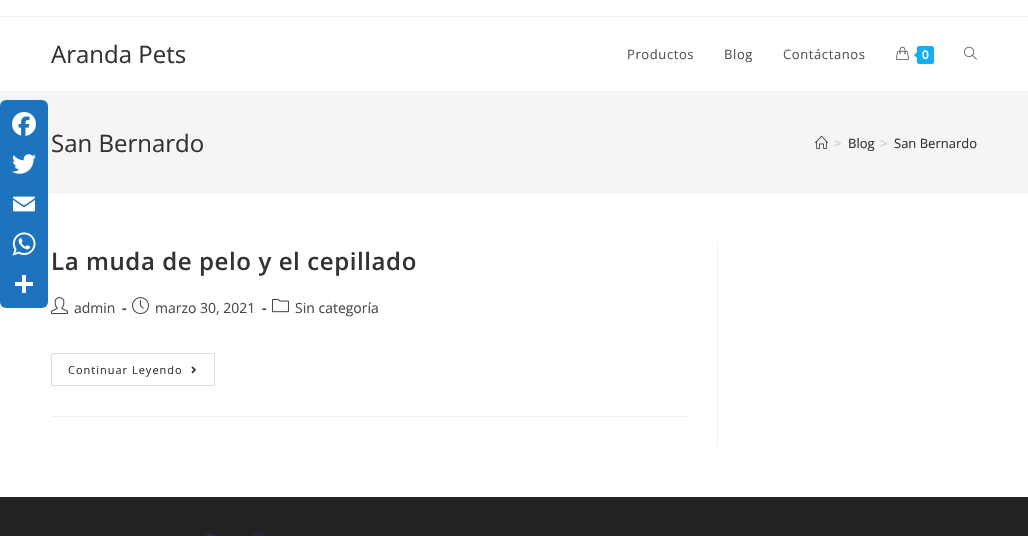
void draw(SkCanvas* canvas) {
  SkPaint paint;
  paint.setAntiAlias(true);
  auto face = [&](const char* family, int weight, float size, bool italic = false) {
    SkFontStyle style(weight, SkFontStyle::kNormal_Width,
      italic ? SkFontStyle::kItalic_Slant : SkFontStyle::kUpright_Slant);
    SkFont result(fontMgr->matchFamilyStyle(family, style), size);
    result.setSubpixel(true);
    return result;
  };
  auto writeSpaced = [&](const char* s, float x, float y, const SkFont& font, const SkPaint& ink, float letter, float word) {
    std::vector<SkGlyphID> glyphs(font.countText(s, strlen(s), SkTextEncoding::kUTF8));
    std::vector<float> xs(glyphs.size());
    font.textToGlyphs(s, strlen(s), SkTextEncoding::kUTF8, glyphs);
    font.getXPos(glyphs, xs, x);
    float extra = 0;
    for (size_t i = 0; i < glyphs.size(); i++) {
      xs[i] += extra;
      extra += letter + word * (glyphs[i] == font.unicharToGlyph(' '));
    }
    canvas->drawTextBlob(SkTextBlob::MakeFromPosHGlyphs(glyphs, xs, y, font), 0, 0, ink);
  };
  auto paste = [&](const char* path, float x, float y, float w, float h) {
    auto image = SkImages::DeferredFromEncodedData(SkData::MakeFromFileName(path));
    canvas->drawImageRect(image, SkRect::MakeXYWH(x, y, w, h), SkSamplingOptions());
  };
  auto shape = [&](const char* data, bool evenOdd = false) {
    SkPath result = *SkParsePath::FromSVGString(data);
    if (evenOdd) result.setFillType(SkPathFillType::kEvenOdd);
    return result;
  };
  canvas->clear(0xffffffff);
  paint.setColor(0xfff5f5f5);
  canvas->drawRect(SkRect::MakeXYWH(0, 92, 1028, 102), paint);
  paint.setColor(0xff1e73be);
  canvas->drawRoundRect(SkRect::MakeXYWH(0, 100, 48, 208), 6, 6, paint);
  paste("img/1.png", 12, 112, 24, 24);
  paste("img/2.png", 12, 154, 24, 20);
  paste("img/3.png", 13, 196, 22, 16);
  paste("img/4.png", 12, 232, 24, 24);
  {
    const struct { float x, y, w, h; SkColor color; } items[] = {
      {22, 275, 4, 18, 0xffffffff},
      {15, 282, 18, 4, 0xffffffff},
      {0, 16, 1028, 1, 0xfff1f1f1},
      {0, 91, 1028, 1, 0xfff1f1f1},
    };
    for (auto [x, y, w, h, color] : items) {
      paint.setColor(color);
      canvas->drawRect(SkRect::MakeXYWH(x, y, w, h), paint);
    }
  }
  paste("img/5.png", 896, 46, 13, 14);
  paint.setColor(0xff13aff0);
  canvas->drawRoundRect(SkRect::MakeXYWH(917, 46, 17, 18), 2, 2, paint);
  canvas->drawPath(shape("M919 50V60L914 55Z"), paint);
  paste("img/6.png", 964, 46, 13, 14);
  paste("img/7.png", 815, 135, 13, 14);
  paint.setColor(0xfff1f1f1);
  canvas->drawRect(SkRect::MakeXYWH(717, 244, 1, 203), paint);
  canvas->drawRect(SkRect::MakeXYWH(51, 416, 636, 1), paint);
  paste("img/8.png", 51, 297, 17, 18);
  paste("img/9.png", 132, 297, 17, 18);
  paste("img/10.png", 272, 298, 17, 15);
  paint.setStroke(true);
  paint.setStrokeWidth(1);
  paint.setColor(0xffdddddd);
  canvas->drawRoundRect(SkRect::MakeXYWH(51.5f, 353.5f, 163, 32), 1.5f, 1.5f, paint);
  paste("img/11.png", 191, 366, 5, 8);
  paint.setStroke(false);
  paint.setColor(0xff222222);
  canvas->drawRect(SkRect::MakeXYWH(0, 497, 1028, 39), paint);
  paste("img/12.png", 205, 532, 59, 4);
  auto f0 = face("Open Sans", 400, 24);
  paint.setColor(0xff333333);
  canvas->drawString("Aranda Pets", 51, 63, f0, paint);
  auto f1 = face("Open Sans", 400, 13);
  paint.setColor(0xff555555);
  {
    const struct { const char* s; float x, y; } items[] = {
      {"Productos", 627, 59},
      {"Blog", 724, 59},
      {"Contáctanos", 783, 59},
    };
    for (auto [s, x, y] : items) {
      writeSpaced(s, x, y, f1, paint, 0.6f, 0);
    }
  }
  auto f2 = face("Open Sans", 600, 12);
  paint.setColor(0xffffffff);
  canvas->drawString("0", 922, 59, f2, paint);
  paint.setColor(0xff333333);
  canvas->drawString("San Bernardo", 51, 152, f0, paint);
  paint.setColor(0xffc6c6c6);
  canvas->drawString(">", 834, 148, f1, paint);
  paint.setColor(0xff333333);
  canvas->drawString("Blog", 848, 148, f1, paint);
  paint.setColor(0xffc6c6c6);
  canvas->drawString(">", 880, 148, f1, paint);
  paint.setColor(0xff333333);
  canvas->drawString("San Bernardo", 894, 148, f1, paint);
  auto f3 = face("Open Sans", 600, 24);
  writeSpaced("La muda de pelo y el cepillado", 51, 270, f3, paint, 0.6f, 0);
  auto f4 = face("Open Sans", 400, 14);
  paint.setColor(0xff4a4a4a);
  canvas->drawString("admin", 74, 313, f4, paint);
  auto f5 = face("Open Sans", 700, 14);
  canvas->drawString("-", 122, 313, f5, paint);
  canvas->drawString("marzo 30, 2021", 155, 313, f4, paint);
  canvas->drawString("-", 262, 313, f5, paint);
  canvas->drawString("Sin categoría", 295, 313, f4, paint);
  auto f6 = face("Open Sans", 400, 11);
  paint.setColor(0xff333333);
  writeSpaced("Continuar Leyendo", 68, 374, f6, paint, 1, 0);
}
